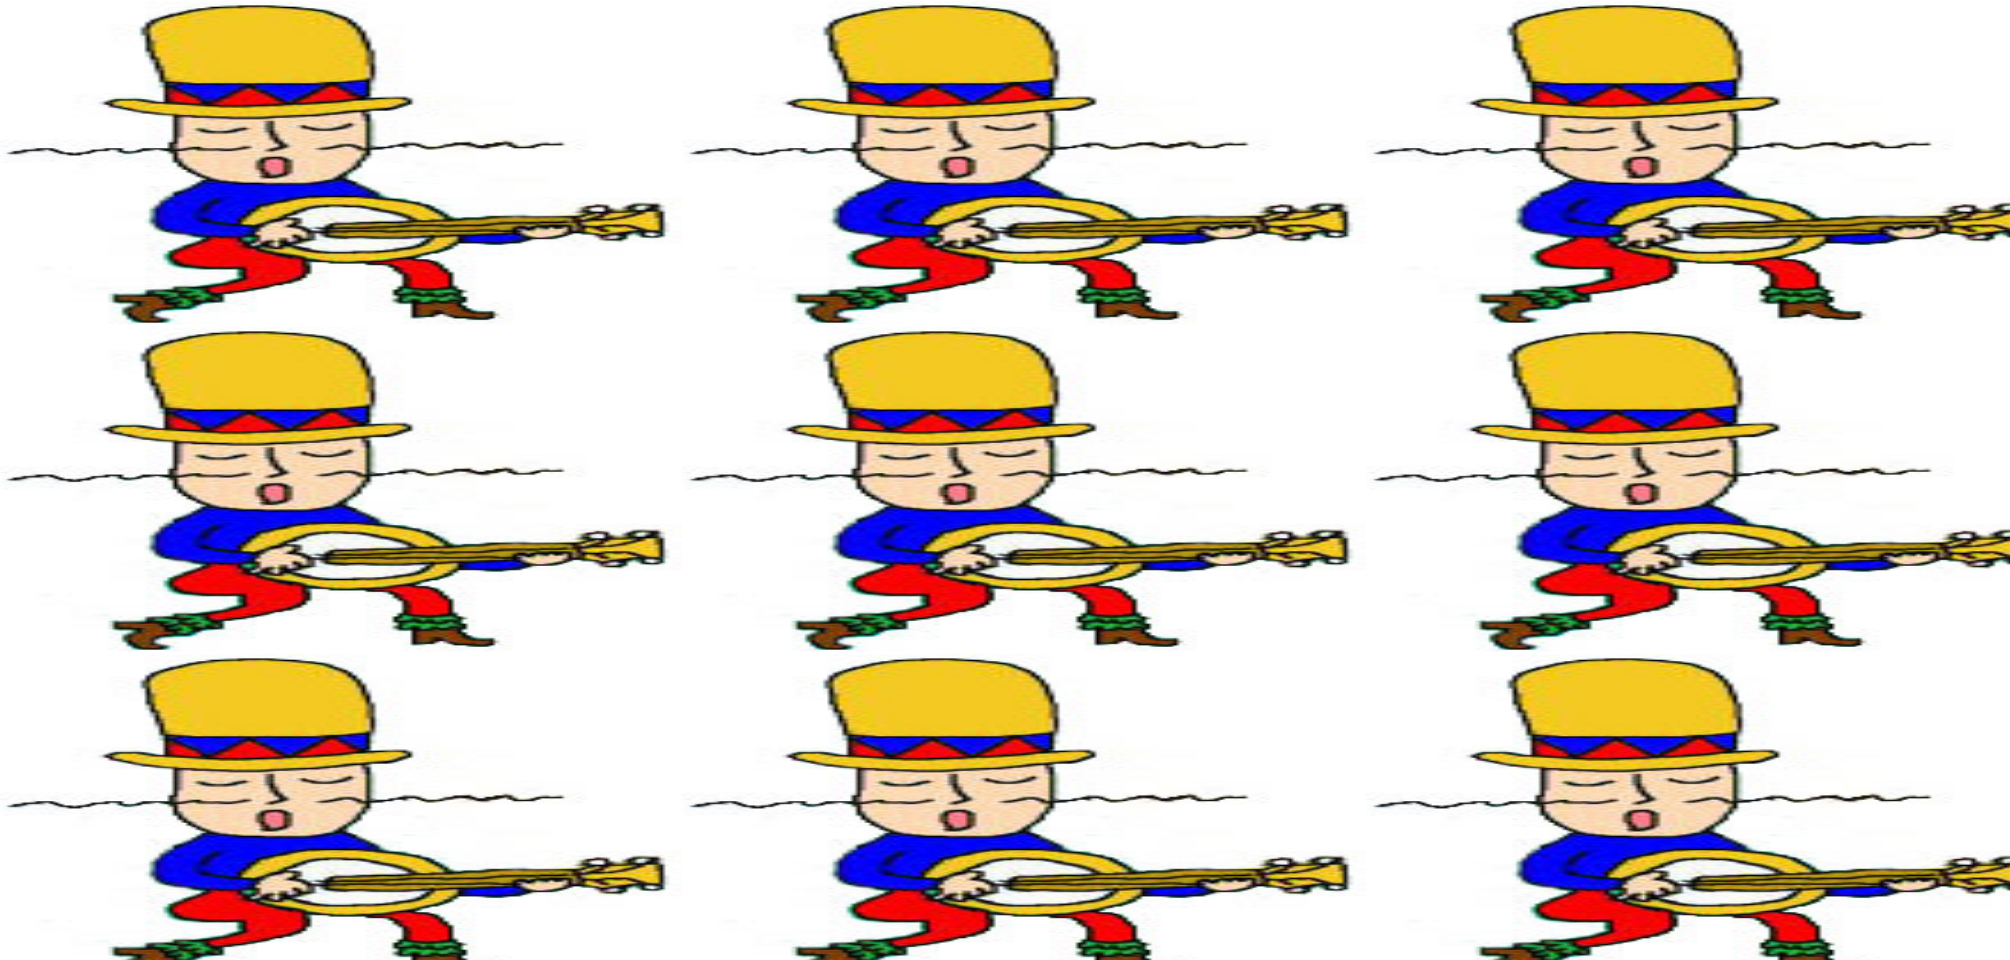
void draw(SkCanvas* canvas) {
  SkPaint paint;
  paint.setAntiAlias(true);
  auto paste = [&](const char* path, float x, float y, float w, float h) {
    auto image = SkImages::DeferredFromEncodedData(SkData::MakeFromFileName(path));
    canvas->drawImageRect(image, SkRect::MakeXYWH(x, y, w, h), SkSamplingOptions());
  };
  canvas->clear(0xffffffff);
  paste("img/1.png", 0, 1, 682, 324);
  paste("img/2.png", 682, 1, 684, 324);
  paste("img/3.png", 1366, 1, 644, 324);
  paste("img/4.png", 0, 327, 682, 325);
  paste("img/5.png", 682, 327, 684, 325);
  paste("img/6.png", 1366, 327, 644, 325);
  paste("img/7.png", 0, 654, 682, 306);
  paste("img/8.png", 682, 654, 684, 306);
  paste("img/9.png", 1366, 654, 644, 306);
}
